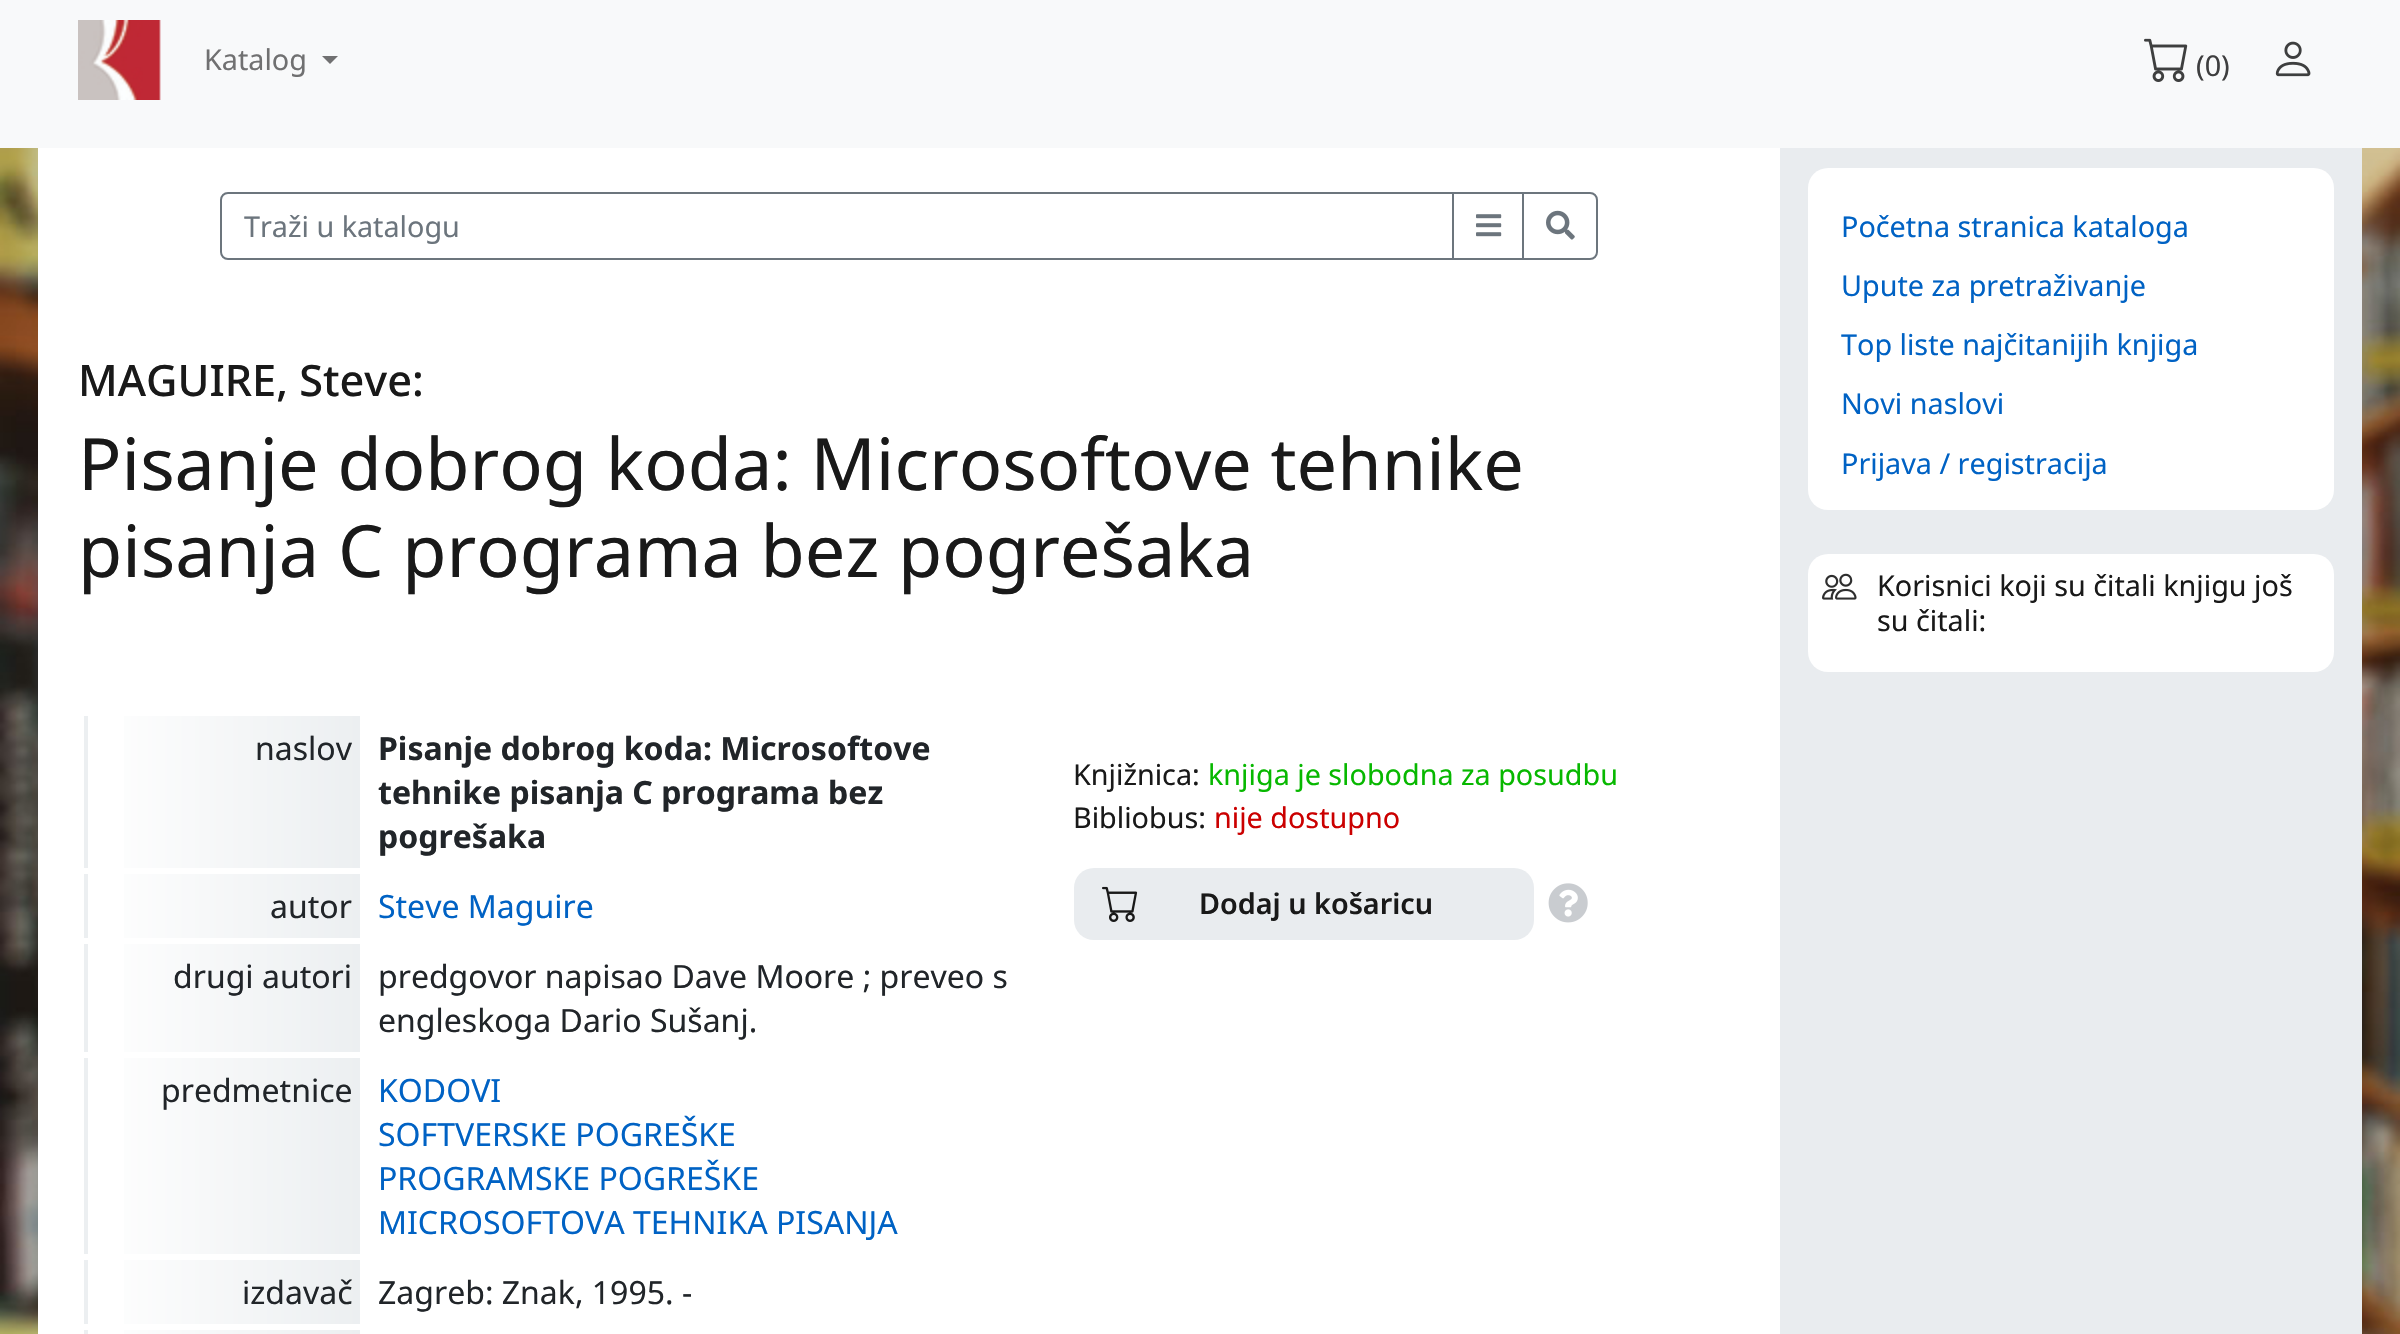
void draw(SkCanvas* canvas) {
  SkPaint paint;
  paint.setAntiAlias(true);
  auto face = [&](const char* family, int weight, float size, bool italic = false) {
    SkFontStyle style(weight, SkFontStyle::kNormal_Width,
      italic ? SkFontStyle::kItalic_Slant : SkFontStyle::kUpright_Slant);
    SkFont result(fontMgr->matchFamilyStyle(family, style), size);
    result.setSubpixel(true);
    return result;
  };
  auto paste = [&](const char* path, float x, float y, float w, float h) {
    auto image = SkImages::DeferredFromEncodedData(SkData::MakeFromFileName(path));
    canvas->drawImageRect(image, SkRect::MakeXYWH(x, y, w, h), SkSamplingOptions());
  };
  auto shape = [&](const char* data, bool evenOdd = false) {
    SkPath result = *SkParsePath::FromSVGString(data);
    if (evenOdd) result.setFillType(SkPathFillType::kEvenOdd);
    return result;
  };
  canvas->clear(0xfff8f9fa);
  paste("img/1.png", 78, 20, 83, 80);
  paint.setColor(0xff707071);
  canvas->drawPath(shape("M322 56H338L330 64Z"), paint);
  paste("img/2.png", 2144, 38, 44, 44);
  paste("img/3.png", 2275, 41, 36, 36);
  paste("img/4.png", 0, 148, 2400, 1186);
  paint.setColor(0xffffffff);
  canvas->drawRect(SkRect::MakeXYWH(38, 148, 1742, 1186), paint);
  paint.setStroke(true);
  paint.setStrokeWidth(2);
  paint.setColor(0xff6c757d);
  canvas->drawPath(shape("M228 193H1453V259H228C224 259 221 256 221 252V200C221 196 224 193 228 193Z"), paint);
  canvas->drawRect(SkRect::MakeXYWH(1453, 193, 70, 66), paint);
  paste("img/5.png", 1476, 214, 26, 23);
  canvas->drawPath(shape("M1523 193H1590C1594 193 1597 196 1597 200V252C1597 256 1594 259 1590 259H1523Z"), paint);
  paste("img/6.png", 1546, 210, 29, 30);
  paint.setStroke(false);
  {
    const SkColor colors[] = {0xffffffff, 0xffeceff1};
    const float stops[] = {0, 1};
    const SkPoint ends[] = {{-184, 791}, {88, 791}};
    paint.setShader(SkGradientShader::MakeLinear(ends, colors, stops, 2, SkTileMode::kClamp));
    paint.setAlpha(255);
  }
  canvas->drawRect(SkRect::MakeXYWH(84, 712, 4, 158), paint);
  {
    const SkColor colors[] = {0xffffffff, 0xffeceff1};
    const float stops[] = {0, 1};
    const SkPoint ends[] = {{88, 791}, {360, 791}};
    paint.setShader(SkGradientShader::MakeLinear(ends, colors, stops, 2, SkTileMode::kClamp));
    paint.setAlpha(255);
  }
  canvas->drawRect(SkRect::MakeXYWH(124, 716, 236, 152), paint);
  paint.setShader(nullptr);
  paint.setColor(0xffffffff);
  canvas->drawRect(SkRect::MakeXYWH(78, 712, 10, 4), paint);
  {
    const SkColor colors[] = {0xffffffff, 0xffeceff1};
    const float stops[] = {0, 1};
    const SkPoint ends[] = {{-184, 905}, {88, 905}};
    paint.setShader(SkGradientShader::MakeLinear(ends, colors, stops, 2, SkTileMode::kClamp));
    paint.setAlpha(255);
  }
  canvas->drawRect(SkRect::MakeXYWH(84, 870, 4, 70), paint);
  {
    const SkColor colors[] = {0xffffffff, 0xffeceff1};
    const float stops[] = {0, 1};
    const SkPoint ends[] = {{88, 905}, {360, 905}};
    paint.setShader(SkGradientShader::MakeLinear(ends, colors, stops, 2, SkTileMode::kClamp));
    paint.setAlpha(255);
  }
  canvas->drawRect(SkRect::MakeXYWH(124, 874, 236, 64), paint);
  paint.setShader(nullptr);
  paint.setColor(0xffffffff);
  canvas->drawRect(SkRect::MakeXYWH(78, 868, 10, 6), paint);
  {
    const SkColor colors[] = {0xffffffff, 0xffeceff1};
    const float stops[] = {0, 1};
    const SkPoint ends[] = {{-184, 997}, {88, 997}};
    paint.setShader(SkGradientShader::MakeLinear(ends, colors, stops, 2, SkTileMode::kClamp));
    paint.setAlpha(255);
  }
  canvas->drawRect(SkRect::MakeXYWH(84, 940, 4, 114), paint);
  {
    const SkColor colors[] = {0xffffffff, 0xffeceff1};
    const float stops[] = {0, 1};
    const SkPoint ends[] = {{88, 997}, {360, 997}};
    paint.setShader(SkGradientShader::MakeLinear(ends, colors, stops, 2, SkTileMode::kClamp));
    paint.setAlpha(255);
  }
  canvas->drawRect(SkRect::MakeXYWH(124, 944, 236, 108), paint);
  paint.setShader(nullptr);
  paint.setColor(0xffffffff);
  canvas->drawRect(SkRect::MakeXYWH(78, 938, 10, 6), paint);
  {
    const SkColor colors[] = {0xffffffff, 0xffeceff1};
    const float stops[] = {0, 1};
    const SkPoint ends[] = {{-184, 1155}, {88, 1155}};
    paint.setShader(SkGradientShader::MakeLinear(ends, colors, stops, 2, SkTileMode::kClamp));
    paint.setAlpha(255);
  }
  canvas->drawRect(SkRect::MakeXYWH(84, 1054, 4, 202), paint);
  {
    const SkColor colors[] = {0xffffffff, 0xffeceff1};
    const float stops[] = {0, 1};
    const SkPoint ends[] = {{88, 1155}, {360, 1155}};
    paint.setShader(SkGradientShader::MakeLinear(ends, colors, stops, 2, SkTileMode::kClamp));
    paint.setAlpha(255);
  }
  canvas->drawRect(SkRect::MakeXYWH(124, 1058, 236, 196), paint);
  paint.setShader(nullptr);
  paint.setColor(0xffffffff);
  canvas->drawRect(SkRect::MakeXYWH(78, 1052, 10, 6), paint);
  {
    const SkColor colors[] = {0xffffffff, 0xffeceff1};
    const float stops[] = {0, 1};
    const SkPoint ends[] = {{-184, 1291}, {88, 1291}};
    paint.setShader(SkGradientShader::MakeLinear(ends, colors, stops, 2, SkTileMode::kClamp));
    paint.setAlpha(255);
  }
  canvas->drawRect(SkRect::MakeXYWH(84, 1256, 4, 70), paint);
  {
    const SkColor colors[] = {0xffffffff, 0xffeceff1};
    const float stops[] = {0, 1};
    const SkPoint ends[] = {{88, 1291}, {360, 1291}};
    paint.setShader(SkGradientShader::MakeLinear(ends, colors, stops, 2, SkTileMode::kClamp));
    paint.setAlpha(255);
  }
  canvas->drawRect(SkRect::MakeXYWH(124, 1260, 236, 64), paint);
  paint.setShader(nullptr);
  paint.setColor(0xffffffff);
  canvas->drawRect(SkRect::MakeXYWH(78, 1254, 10, 6), paint);
  {
    const SkColor colors[] = {0xffffffff, 0xffeceff1};
    const float stops[] = {0, 1};
    const SkPoint ends[] = {{-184, 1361}, {88, 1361}};
    paint.setShader(SkGradientShader::MakeLinear(ends, colors, stops, 2, SkTileMode::kClamp));
    paint.setAlpha(255);
  }
  canvas->drawRect(SkRect::MakeXYWH(84, 1326, 4, 8), paint);
  {
    const SkColor colors[] = {0xffffffff, 0xffeceff1};
    const float stops[] = {0, 1};
    const SkPoint ends[] = {{88, 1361}, {360, 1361}};
    paint.setShader(SkGradientShader::MakeLinear(ends, colors, stops, 2, SkTileMode::kClamp));
    paint.setAlpha(255);
  }
  canvas->drawRect(SkRect::MakeXYWH(124, 1330, 236, 4), paint);
  paint.setShader(nullptr);
  paint.setColor(0xffffffff);
  canvas->drawRect(SkRect::MakeXYWH(78, 1324, 10, 6), paint);
  paint.setColor(0xffe9ecef);
  canvas->drawRoundRect(SkRect::MakeXYWH(1074, 868, 460, 72), 20, 20, paint);
  paste("img/7.png", 1102, 886, 36, 36);
  paste("img/8.png", 1548, 883, 40, 40);
  canvas->drawRect(SkRect::MakeXYWH(1780, 148, 582, 1186), paint);
  paint.setColor(0xffffffff);
  canvas->drawRoundRect(SkRect::MakeXYWH(1808, 168, 526, 342), 20, 20, paint);
  canvas->drawRoundRect(SkRect::MakeXYWH(1808, 554, 526, 118), 20, 20, paint);
  paste("img/9.png", 1822, 573, 35, 27);
  auto f0 = face("Noto Sans", 400, 28.75f);
  paint.setColor(0xff707071);
  canvas->drawString("Katalog", 204, 70, f0, paint);
  paint.setColor(0xff3e3e3f);
  canvas->drawString("(0)", 2196, 76, f0, paint);
  paint.setColor(0xff6c757d);
  canvas->drawString("Traži u katalogu", 244, 237, f0, paint);
  auto f1 = face("Noto Sans", 500, 43.25f);
  paint.setColor(0xff191919);
  canvas->drawString("MAGUIRE, Steve:", 78, 396, f1, paint);
  auto f2 = face("Noto Sans", 400, 72);
  canvas->drawString("Pisanje dobrog koda: Microsoftove tehnike", 78, 490, f2, paint);
  canvas->drawString("pisanja C programa bez pogrešaka", 78, 577, f2, paint);
  auto f3 = face("Noto Sans", 400, 32);
  paint.setColor(0xff212529);
  canvas->drawString("naslov", 255, 760, f3, paint);
  auto f4 = face("Noto Sans", 700, 32);
  {
    const struct { const char* s; float x, y; } items[] = {
      {"Pisanje dobrog koda: Microsoftove", 378, 760},
      {"tehnike pisanja C programa bez", 378, 804},
      {"pogrešaka", 378, 848},
    };
    for (auto [s, x, y] : items) {
      canvas->drawString(s, x, y, f4, paint);
    }
  }
  canvas->drawString("autor", 270, 918, f3, paint);
  paint.setColor(0xff0062c4);
  canvas->drawString("Steve Maguire", 378, 918, f3, paint);
  paint.setColor(0xff212529);
  {
    const struct { const char* s; float x, y; } items[] = {
      {"drugi autori", 173, 988},
      {"predgovor napisao Dave Moore ; preveo s", 378, 988},
      {"engleskoga Dario Sušanj.", 378, 1032},
      {"predmetnice", 161, 1102},
    };
    for (auto [s, x, y] : items) {
      canvas->drawString(s, x, y, f3, paint);
    }
  }
  paint.setColor(0xff0062c4);
  {
    const struct { const char* s; float x, y; } items[] = {
      {"KODOVI", 378, 1102},
      {"SOFTVERSKE POGREŠKE", 378, 1146},
      {"PROGRAMSKE POGREŠKE", 378, 1190},
      {"MICROSOFTOVA TEHNIKA PISANJA", 378, 1234},
    };
    for (auto [s, x, y] : items) {
      canvas->drawString(s, x, y, f3, paint);
    }
  }
  paint.setColor(0xff212529);
  canvas->drawString("izdavač", 242, 1304, f3, paint);
  canvas->drawString("Zagreb: Znak, 1995. -", 378, 1304, f3, paint);
  paint.setColor(0xff191919);
  canvas->drawString("Knjižnica:", 1073, 785, f0, paint);
  paint.setColor(0xff07b800);
  canvas->drawString("knjiga je slobodna za posudbu", 1208, 785, f0, paint);
  paint.setColor(0xff191919);
  canvas->drawString("Bibliobus:", 1073, 828, f0, paint);
  paint.setColor(0xffcb0000);
  canvas->drawString("nije dostupno", 1214, 828, f0, paint);
  auto f5 = face("Noto Sans", 600, 28.75f);
  paint.setColor(0xff191919);
  canvas->drawString("Dodaj u košaricu", 1199, 914, f5, paint);
  paint.setColor(0xff0062c4);
  {
    const struct { const char* s; float x, y; } items[] = {
      {"Početna stranica kataloga", 1841, 237},
      {"Upute za pretraživanje", 1841, 296},
      {"Top liste najčitanijih knjiga", 1841, 355},
      {"Novi naslovi", 1841, 414},
      {"Prijava / registracija", 1841, 474},
    };
    for (auto [s, x, y] : items) {
      canvas->drawString(s, x, y, f0, paint);
    }
  }
  paint.setColor(0xff191919);
  canvas->drawString("Korisnici koji su čitali knjigu još", 1877, 596, f0, paint);
  canvas->drawString("su čitali:", 1877, 631, f0, paint);
}
